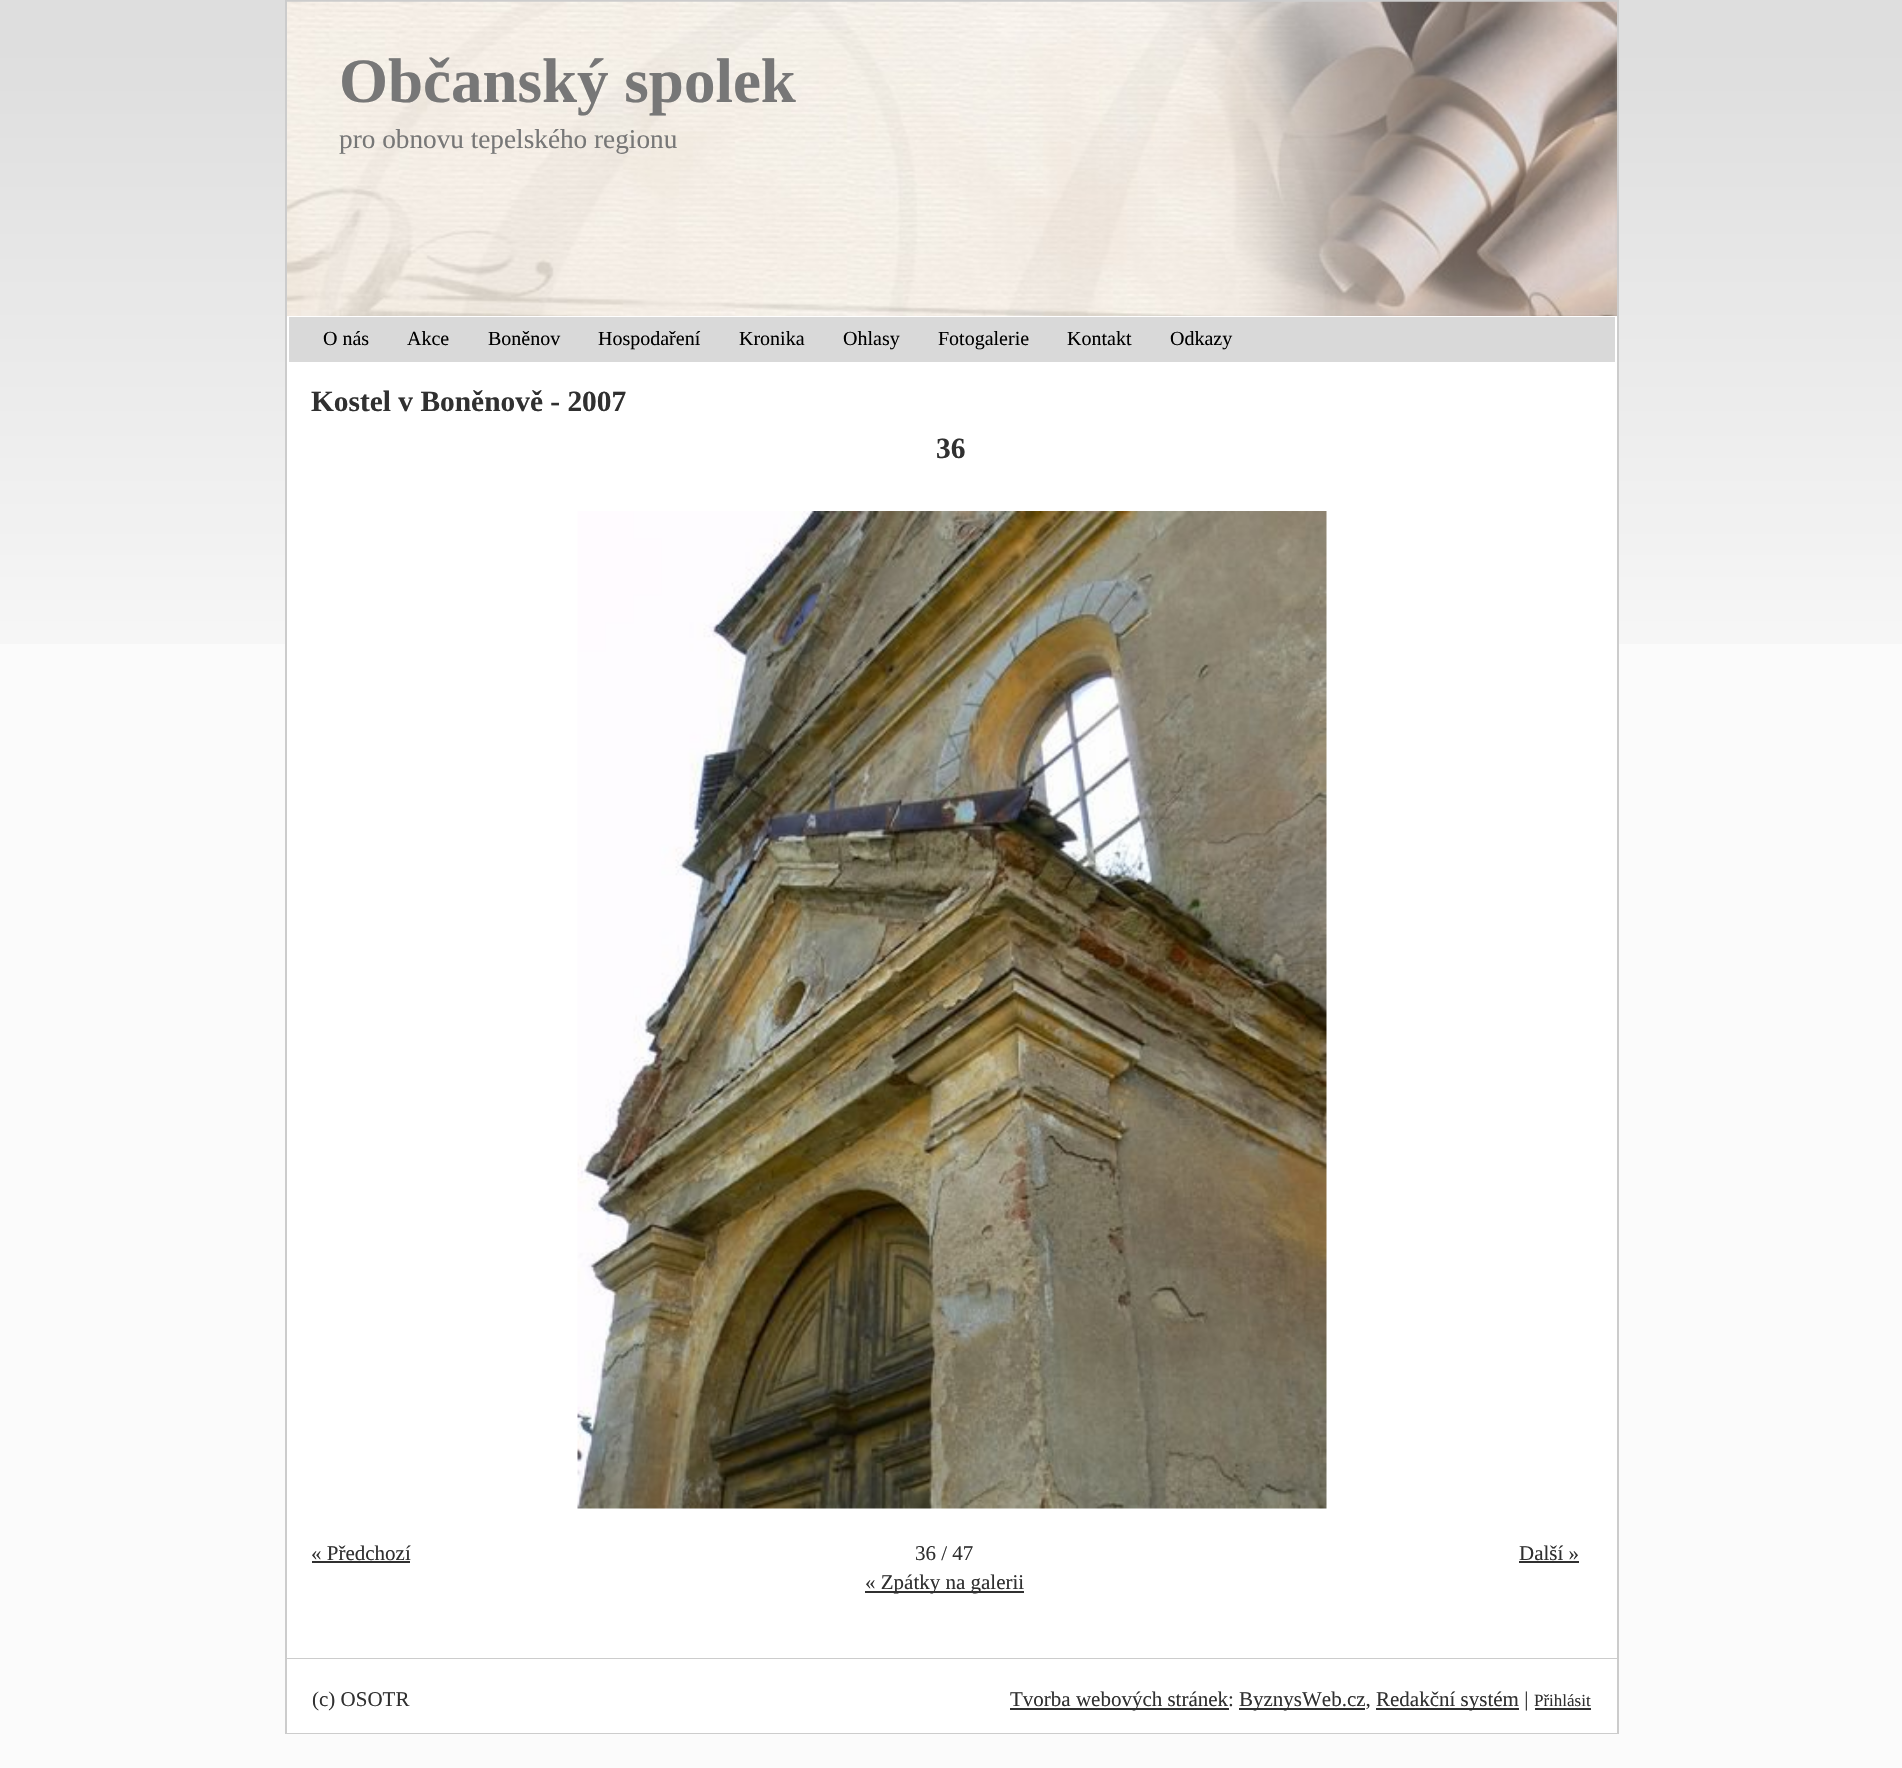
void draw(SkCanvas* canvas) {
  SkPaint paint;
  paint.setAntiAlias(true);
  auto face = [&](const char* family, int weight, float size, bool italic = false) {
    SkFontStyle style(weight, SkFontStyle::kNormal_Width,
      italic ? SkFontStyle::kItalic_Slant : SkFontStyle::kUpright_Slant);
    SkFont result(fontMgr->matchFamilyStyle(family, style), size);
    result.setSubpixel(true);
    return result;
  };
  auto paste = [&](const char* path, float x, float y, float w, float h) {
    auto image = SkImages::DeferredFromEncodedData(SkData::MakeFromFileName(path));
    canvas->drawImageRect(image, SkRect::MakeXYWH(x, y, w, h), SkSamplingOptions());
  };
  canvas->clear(0xfffbfbfb);
  paste("img/1.png", 0, 0, 1902, 644);
  paint.setStroke(true);
  paint.setStrokeWidth(2);
  paint.setColor(0xffcccccc);
  canvas->drawRect(SkRect::MakeXYWH(286, 1, 1332, 1732), paint);
  paste("img/2.png", 287, 1, 1330, 315);
  paint.setStroke(false);
  paint.setColor(0xffffffff);
  canvas->drawRect(SkRect::MakeXYWH(287, 316, 1330, 1342), paint);
  paint.setColor(0xffd9d9d9);
  canvas->drawRect(SkRect::MakeXYWH(289, 317, 1326, 45), paint);
  paste("img/3.png", 577, 511, 750, 998);
  {
    const struct { float x, y, w, h; SkColor color; } items[] = {
      {312, 1561, 98, 2, 0xff303030},
      {1519, 1561, 60, 2, 0xff303030},
      {865, 1591, 159, 2, 0xff303030},
      {287, 1659, 1330, 74, 0xffffffff},
      {287, 1658, 1330, 1, 0xffcccccc},
      {1010, 1708, 219, 2, 0xff303030},
      {1239, 1708, 126, 2, 0xff303030},
      {1376, 1708, 143, 2, 0xff303030},
      {1535, 1708, 56, 2, 0xff303030},
    };
    for (auto [x, y, w, h, color] : items) {
      paint.setColor(color);
      canvas->drawRect(SkRect::MakeXYWH(x, y, w, h), paint);
    }
  }
  auto f0 = face("Liberation Serif", 700, 63);
  paint.setColor(0xff777777);
  canvas->drawString("Občanský spolek", 339, 102, f0, paint);
  auto f1 = face("Liberation Serif", 400, 27.25f);
  canvas->drawString("pro obnovu tepelského regionu", 339, 148, f1, paint);
  auto f2 = face("Liberation Serif", 400, 20);
  paint.setColor(0xff000000);
  {
    const struct { const char* s; float x, y; } items[] = {
      {"O nás", 323, 345},
      {"Akce", 407, 345},
      {"Boněnov", 488, 345},
      {"Hospodaření", 598, 345},
      {"Kronika", 739, 345},
      {"Ohlasy", 843, 345},
      {"Fotogalerie", 938, 345},
      {"Kontakt", 1067, 345},
      {"Odkazy", 1170, 345},
    };
    for (auto [s, x, y] : items) {
      canvas->drawString(s, x, y, f2, paint);
    }
  }
  auto f3 = face("Liberation Serif", 700, 29.4f);
  paint.setColor(0xff303030);
  canvas->drawString("Kostel v Boněnově - 2007", 311, 411, f3, paint);
  canvas->drawString("36", 936, 458, f3, paint);
  auto f4 = face("Liberation Serif", 400, 21);
  {
    const struct { const char* s; float x, y; } items[] = {
      {"« Předchozí", 311, 1560},
      {"36 / 47", 915, 1560},
      {"Další »", 1519, 1560},
      {"« Zpátky na galerii", 865, 1589},
      {"(c) OSOTR", 312, 1706},
      {"Tvorba webových stránek:", 1010, 1706},
      {"ByznysWeb.cz,", 1239, 1706},
      {"Redakční systém |", 1376, 1706},
    };
    for (auto [s, x, y] : items) {
      canvas->drawString(s, x, y, f4, paint);
    }
  }
  auto f5 = face("Liberation Serif", 400, 17);
  canvas->drawString("Přihlásit", 1534, 1706, f5, paint);
}
